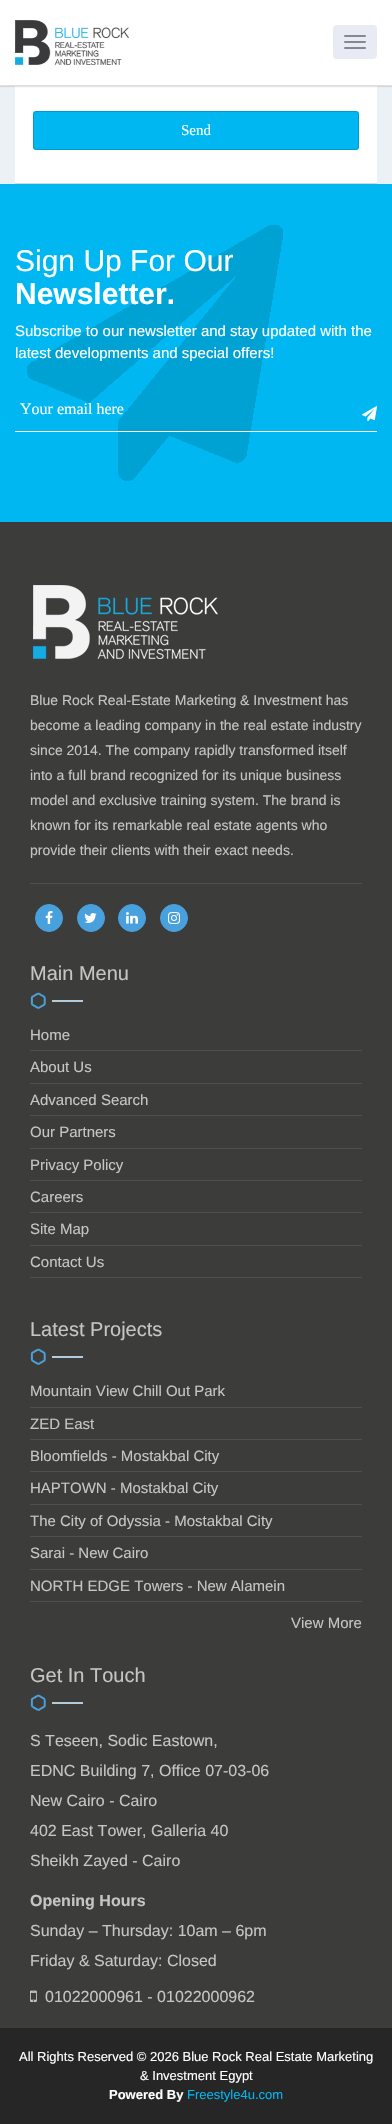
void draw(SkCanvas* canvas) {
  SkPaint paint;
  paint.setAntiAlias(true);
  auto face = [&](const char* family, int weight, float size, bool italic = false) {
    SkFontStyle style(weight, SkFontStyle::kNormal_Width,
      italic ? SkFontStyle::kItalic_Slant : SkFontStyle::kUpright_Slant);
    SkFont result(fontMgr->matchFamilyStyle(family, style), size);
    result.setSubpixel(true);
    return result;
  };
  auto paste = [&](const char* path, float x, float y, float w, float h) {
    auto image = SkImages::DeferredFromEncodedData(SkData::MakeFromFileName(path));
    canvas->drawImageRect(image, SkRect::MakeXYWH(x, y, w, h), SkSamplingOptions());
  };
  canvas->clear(0xffebf1f5);
  paint.setColor(0xffffffff);
  canvas->drawRect(SkRect::MakeXYWH(15, 86, 362, 97), paint);
  paint.setColor(0x1a000000);
  paint.setMaskFilter(SkMaskFilter::MakeBlur(kNormal_SkBlurStyle, 0.5f));
  canvas->drawRect(SkRect::MakeXYWH(0, 1, 392, 86), paint);
  paint.setMaskFilter(nullptr);
  paint.setColor(0xffffffff);
  canvas->drawRect(SkRect::MakeXYWH(0, 0, 392, 85), paint);
  paint.setColor(0xffdfdfdf);
  canvas->drawRect(SkRect::MakeXYWH(0, 85, 392, 1), paint);
  paste("img/1.png", 15, 20, 114, 45);
  paint.setColor(0xffe8ebf3);
  canvas->drawRoundRect(SkRect::MakeXYWH(333, 25, 44, 34), 4, 4, paint);
  paint.setColor(0xff838893);
  canvas->drawRoundRect(SkRect::MakeXYWH(344, 35, 22, 2), 1, 1, paint);
  canvas->drawRoundRect(SkRect::MakeXYWH(344, 41, 22, 2), 1, 1, paint);
  canvas->drawRoundRect(SkRect::MakeXYWH(344, 47, 22, 2), 1, 1, paint);
  paint.setColor(0xffd4d9dd);
  canvas->drawRect(SkRect::MakeXYWH(15, 183, 362, 1), paint);
  paint.setColor(0xff00b7f1);
  canvas->drawRoundRect(SkRect::MakeXYWH(33, 111, 326, 39), 3, 3, paint);
  paint.setStroke(true);
  paint.setStrokeWidth(1);
  paint.setColor(0x26000000);
  canvas->drawRoundRect(SkRect::MakeXYWH(33.5f, 111.5f, 325, 38), 2.5f, 2.5f, paint);
  paint.setStroke(false);
  paint.setColor(0xff00b7f1);
  canvas->drawRect(SkRect::MakeXYWH(0, 184, 392, 338), paint);
  paste("img/2.png", 27, 225, 256, 256);
  paint.setColor(0xffffffff);
  canvas->drawRect(SkRect::MakeXYWH(15, 431, 362, 1), paint);
  paste("img/3.png", 362, 406, 15, 16);
  paint.setColor(0xff3c3c3b);
  canvas->drawRect(SkRect::MakeXYWH(0, 522, 392, 1506), paint);
  paste("img/4.png", 33, 585, 185, 74);
  paint.setColor(0xff50504f);
  canvas->drawRect(SkRect::MakeXYWH(30, 883, 332, 1), paint);
  paint.setColor(0xff48a0dc);
  canvas->drawCircle(49, 918, 13.5f, paint);
  paint.setStroke(true);
  canvas->drawCircle(49, 918, 13.5f, paint);
  paste("img/5.png", 45, 911, 8, 13);
  paint.setStroke(false);
  canvas->drawCircle(91, 918, 13.5f, paint);
  paint.setStroke(true);
  canvas->drawCircle(91, 918, 13.5f, paint);
  paste("img/6.png", 84, 913, 13, 10);
  paint.setStroke(false);
  canvas->drawCircle(132, 918, 13.5f, paint);
  paint.setStroke(true);
  canvas->drawCircle(132, 918, 13.5f, paint);
  paste("img/7.png", 126, 912, 12, 12);
  paint.setStroke(false);
  canvas->drawCircle(174, 918, 13.5f, paint);
  paint.setStroke(true);
  canvas->drawCircle(174, 918, 13.5f, paint);
  paste("img/8.png", 168, 912, 12, 12);
  paste("img/9.png", 30, 992, 53, 17);
  paint.setStroke(false);
  {
    const struct { float x, y, w, h; SkColor color; } items[] = {
      {30, 1050, 332, 1, 0xff50504f},
      {30, 1083, 332, 1, 0xff50504f},
      {30, 1115, 332, 1, 0xff50504f},
      {30, 1148, 332, 1, 0xff50504f},
      {30, 1180, 332, 1, 0xff50504f},
      {30, 1212, 332, 1, 0xff50504f},
      {30, 1245, 332, 1, 0xff50504f},
      {30, 1277, 332, 1, 0xff50504f},
    };
    for (auto [x, y, w, h, color] : items) {
      paint.setColor(color);
      canvas->drawRect(SkRect::MakeXYWH(x, y, w, h), paint);
    }
  }
  paste("img/9.png", 30, 1348, 53, 17);
  {
    const struct { float x, y, w, h; SkColor color; } items[] = {
      {30, 1407, 332, 1, 0xff50504f},
      {30, 1439, 332, 1, 0xff50504f},
      {30, 1471, 332, 1, 0xff50504f},
      {30, 1504, 332, 1, 0xff50504f},
      {30, 1536, 332, 1, 0xff50504f},
      {30, 1569, 332, 1, 0xff50504f},
      {30, 1601, 332, 1, 0xff50504f},
    };
    for (auto [x, y, w, h, color] : items) {
      paint.setColor(color);
      canvas->drawRect(SkRect::MakeXYWH(x, y, w, h), paint);
    }
  }
  paste("img/9.png", 30, 1694, 53, 17);
  paste("img/10.png", 30, 1990, 7, 12);
  paint.setColor(0xff262626);
  canvas->drawRect(SkRect::MakeXYWH(0, 2028, 392, 96), paint);
  auto f0 = face("Liberation Serif", 400, 15);
  paint.setColor(0xffffffff);
  canvas->drawString("Send", 181, 135, f0, paint);
  auto f1 = face("Liberation Sans", 400, 30);
  canvas->drawString("Sign Up For Our", 15, 271, f1, paint);
  auto f2 = face("Liberation Sans", 700, 30);
  canvas->drawString("Newsletter.", 15, 304, f2, paint);
  auto f3 = face("Liberation Sans", 400, 15);
  canvas->drawString("Subscribe to our newsletter and stay updated with the", 15, 336, f3, paint);
  canvas->drawString("latest developments and special offers!", 15, 358, f3, paint);
  auto f4 = face("Liberation Serif", 400, 16);
  canvas->drawString("Your email here", 20, 414, f4, paint);
  auto f5 = face("Liberation Sans", 400, 14);
  paint.setColor(0xffc5c5c4);
  {
    const struct { const char* s; float x, y; } items[] = {
      {"Blue Rock Real-Estate Marketing & Investment has", 30, 705},
      {"become a leading company in the real estate industry", 30, 730},
      {"since 2014. The company rapidly transformed itself", 30, 755},
      {"into a full brand recognized for its unique business", 30, 780},
      {"model and exclusive training system. The brand is", 30, 805},
      {"known for its remarkable real estate agents who", 30, 830},
      {"provide their clients with their exact needs.", 30, 855},
    };
    for (auto [s, x, y] : items) {
      canvas->drawString(s, x, y, f5, paint);
    }
  }
  auto f6 = face("Liberation Sans", 400, 20);
  canvas->drawString("Main Menu", 30, 980, f6, paint);
  {
    const struct { const char* s; float x, y; } items[] = {
      {"Home", 30, 1040},
      {"About Us", 30, 1072},
      {"Advanced Search", 30, 1105},
      {"Our Partners", 30, 1137},
      {"Privacy Policy", 30, 1170},
      {"Careers", 30, 1202},
      {"Site Map", 30, 1234},
      {"Contact Us", 30, 1267},
    };
    for (auto [s, x, y] : items) {
      canvas->drawString(s, x, y, f3, paint);
    }
  }
  canvas->drawString("Latest Projects", 30, 1336, f6, paint);
  {
    const struct { const char* s; float x, y; } items[] = {
      {"Mountain View Chill Out Park", 30, 1396},
      {"ZED East", 30, 1429},
      {"Bloomfields - Mostakbal City", 30, 1461},
      {"HAPTOWN - Mostakbal City", 30, 1493},
      {"The City of Odyssia - Mostakbal City", 30, 1526},
      {"Sarai - New Cairo", 30, 1558},
      {"NORTH EDGE Towers - New Alamein", 30, 1591},
      {"View More", 291, 1628},
    };
    for (auto [s, x, y] : items) {
      canvas->drawString(s, x, y, f3, paint);
    }
  }
  canvas->drawString("Get In Touch", 30, 1682, f6, paint);
  auto f7 = face("Liberation Sans", 400, 16);
  {
    const struct { const char* s; float x, y; } items[] = {
      {"S Teseen, Sodic Eastown,", 30, 1746},
      {"EDNC Building 7, Office 07-03-06", 30, 1776},
      {"New Cairo - Cairo", 30, 1806},
      {"402 East Tower, Galleria 40", 30, 1836},
      {"Sheikh Zayed - Cairo", 30, 1866},
    };
    for (auto [s, x, y] : items) {
      canvas->drawString(s, x, y, f7, paint);
    }
  }
  auto f8 = face("Liberation Sans", 700, 16);
  canvas->drawString("Opening Hours", 30, 1906, f8, paint);
  {
    const struct { const char* s; float x, y; } items[] = {
      {"Sunday – Thursday: 10am – 6pm", 30, 1936},
      {"Friday & Saturday: Closed", 30, 1966},
      {"01022000961 - 01022000962", 45, 2002},
    };
    for (auto [s, x, y] : items) {
      canvas->drawString(s, x, y, f7, paint);
    }
  }
  auto f9 = face("Liberation Sans", 400, 13);
  paint.setColor(0xffffffff);
  canvas->drawString("All Rights Reserved © 2026 Blue Rock Real Estate Marketing", 19, 2061, f9, paint);
  canvas->drawString("& Investment Egypt", 140, 2080, f9, paint);
  auto f10 = face("Liberation Sans", 700, 13);
  canvas->drawString("Powered By", 109, 2099, f10, paint);
  paint.setColor(0xff00b7f1);
  canvas->drawString("Freestyle4u.com", 187, 2099, f9, paint);
}
